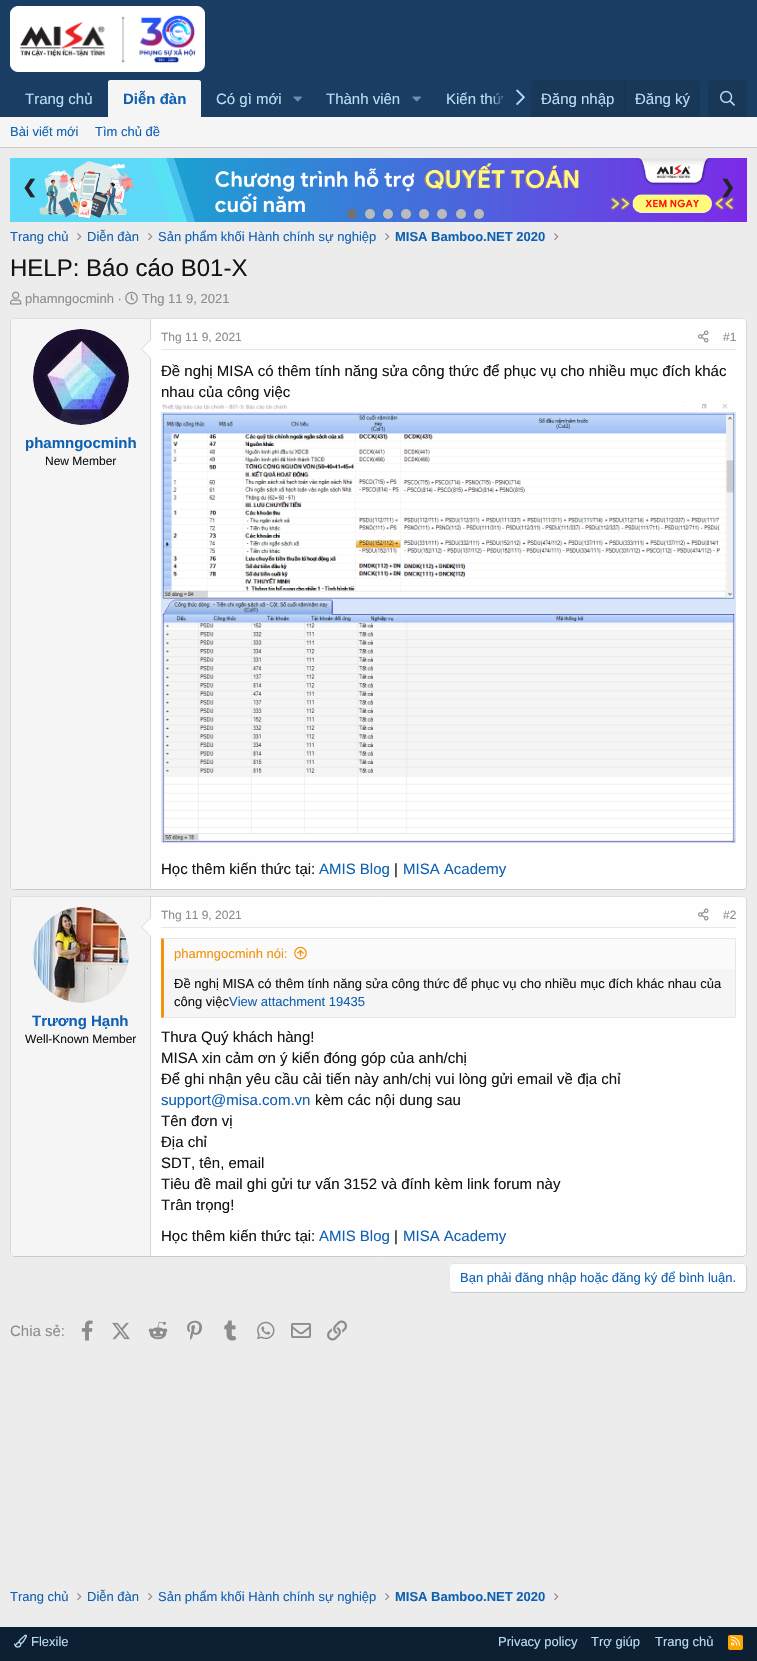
void draw(SkCanvas* canvas) {
  SkPaint paint;
  paint.setAntiAlias(true);
  auto face = [&](const char* family, int weight, float size, bool italic = false) {
    SkFontStyle style(weight, SkFontStyle::kNormal_Width,
      italic ? SkFontStyle::kItalic_Slant : SkFontStyle::kUpright_Slant);
    SkFont result(fontMgr->matchFamilyStyle(family, style), size);
    result.setSubpixel(true);
    return result;
  };
  auto paste = [&](const char* path, float x, float y, float w, float h) {
    auto image = SkImages::DeferredFromEncodedData(SkData::MakeFromFileName(path));
    canvas->drawImageRect(image, SkRect::MakeXYWH(x, y, w, h), SkSamplingOptions());
  };
  auto shape = [&](const char* data, bool evenOdd = false) {
    SkPath result = *SkParsePath::FromSVGString(data);
    if (evenOdd) result.setFillType(SkPathFillType::kEvenOdd);
    return result;
  };
  canvas->clear(0xffececec);
  paint.setColor(0xff1a3e63);
  canvas->drawRect(SkRect::MakeXYWH(0, 0, 757, 117), paint);
  paste("img/1.png", 10, 6, 195, 66);
  paint.setColor(0xfff5f5f5);
  canvas->drawPath(shape("M110 80H199C200 80 201 81 201 82V117H108V82C108 81 109 80 110 80Z"), paint);
  paste("img/2.png", 293, 96, 9, 6);
  paste("img/2.png", 412, 96, 9, 6);
  paste("img/3.png", 516, 89, 9, 16);
  paint.setColor(0xff193857);
  canvas->drawPath(shape("M535 80H696C698 80 700 82 700 84V117H531V84C531 82 533 80 535 80Z"), paint);
  paint.setColor(0xff18334d);
  canvas->drawRect(SkRect::MakeXYWH(624, 80, 1, 37), paint);
  paint.setColor(0xff193857);
  canvas->drawPath(shape("M712 80H743C745 80 747 82 747 84V117H708V84C708 82 710 80 712 80Z"), paint);
  paste("img/4.png", 720, 90, 15, 16);
  paint.setColor(0xfff5f5f5);
  canvas->drawRect(SkRect::MakeXYWH(0, 117, 757, 30), paint);
  paint.setColor(0xffcbcbcb);
  canvas->drawRect(SkRect::MakeXYWH(0, 147, 757, 1), paint);
  paste("img/5.png", 10, 158, 737, 64);
  paint.setColor(0xff717171);
  canvas->drawCircle(352, 214, 5, paint);
  paint.setColor(0xffbbbbbb);
  canvas->drawCircle(370, 214, 5, paint);
  canvas->drawCircle(388, 214, 5, paint);
  canvas->drawCircle(406, 214, 5, paint);
  canvas->drawCircle(424, 214, 5, paint);
  canvas->drawCircle(442, 214, 5, paint);
  canvas->drawCircle(461, 214, 5, paint);
  canvas->drawCircle(479, 214, 5, paint);
  paste("img/6.png", 77, 233, 5, 8);
  paste("img/6.png", 148, 233, 5, 8);
  paste("img/6.png", 385, 233, 5, 8);
  paste("img/6.png", 554, 233, 5, 8);
  paste("img/7.png", 10, 291, 12, 14);
  paste("img/8.png", 125, 291, 13, 14);
  paint.setColor(0xfffefefe);
  canvas->drawRoundRect(SkRect::MakeXYWH(10, 318, 737, 572), 4, 4, paint);
  paint.setStroke(true);
  paint.setStrokeWidth(1);
  paint.setColor(0xffdfdfdf);
  canvas->drawPath(shape("M11.5 319.5L14 318.5H743L745.5 319.5"), paint);
  paint.setColor(0xffd8d8d8);
  canvas->drawPath(shape("M745.5 319.5L746.5 322V886L745.5 888.5"), paint);
  paint.setColor(0xffcbcbcb);
  canvas->drawPath(shape("M745.5 888.5L743 889.5H14L11.5 888.5"), paint);
  paint.setColor(0xffd8d8d8);
  canvas->drawPath(shape("M11.5 888.5L10.5 886V322L11.5 319.5"), paint);
  paint.setStroke(false);
  paint.setColor(0xfff5f5f5);
  canvas->drawPath(shape("M14 319H151V889H14C12.5 889 11 887.5 11 886V322C11 320.5 12.5 319 14 319Z"), paint);
  paint.setColor(0xffd8d8d8);
  canvas->drawRect(SkRect::MakeXYWH(150, 319, 1, 570), paint);
  paint.setColor(0xfffefefe);
  canvas->drawCircle(81, 377, 48, paint);
  paste("img/9.png", 33, 329, 96, 96);
  paint.setColor(0xffd8d8d8);
  canvas->drawPath(shape("M151 339V359L141 349Z"), paint);
  paint.setColor(0xfffefefe);
  canvas->drawPath(shape("M151 340V358L142 349Z"), paint);
  paint.setColor(0xffe7e7e7);
  canvas->drawRect(SkRect::MakeXYWH(161, 349, 575, 1), paint);
  paste("img/10.png", 698, 330, 11, 13);
  paste("img/11.png", 161, 403, 575, 440);
  paint.setColor(0xfffefefe);
  canvas->drawRoundRect(SkRect::MakeXYWH(10, 896, 737, 361), 4, 4, paint);
  paint.setStroke(true);
  paint.setColor(0xffdfdfdf);
  canvas->drawPath(shape("M11.5 897.5L14 896.5H743L745.5 897.5"), paint);
  paint.setColor(0xffd8d8d8);
  canvas->drawPath(shape("M745.5 897.5C746 898 746.5 899 746.5 900V1253C746.5 1254 746 1255 745.5 1255.5"), paint);
  paint.setColor(0xffcbcbcb);
  canvas->drawPath(shape("M745.5 1255.5L743 1256.5H14L11.5 1255.5"), paint);
  paint.setColor(0xffd8d8d8);
  canvas->drawPath(shape("M11.5 1255.5C11 1255 10.5 1254 10.5 1253V900C10.5 899 11 898 11.5 897.5"), paint);
  paint.setStroke(false);
  paint.setColor(0xfff5f5f5);
  canvas->drawPath(shape("M14 897H151V1256H14C12.5 1256 11 1254.5 11 1253V900C11 898.5 12.5 897 14 897Z"), paint);
  paint.setColor(0xffd8d8d8);
  canvas->drawRect(SkRect::MakeXYWH(150, 897, 1, 359), paint);
  paint.setColor(0xfffefefe);
  canvas->drawCircle(81, 955, 48, paint);
  paste("img/12.png", 33, 907, 96, 96);
  paint.setColor(0xffd8d8d8);
  canvas->drawPath(shape("M151 917V937L141 927Z"), paint);
  paint.setColor(0xfffefefe);
  canvas->drawPath(shape("M151 918V936L142 927Z"), paint);
  paint.setColor(0xffe7e7e7);
  canvas->drawRect(SkRect::MakeXYWH(161, 927, 575, 1), paint);
  paste("img/10.png", 698, 908, 11, 13);
  paint.setColor(0xfff5f5f5);
  canvas->drawRect(SkRect::MakeXYWH(164, 969, 571, 48), paint);
  paint.setColor(0xffe7e7e7);
  canvas->drawPath(shape("M161 938H736L735 939H164Z"), paint);
  canvas->drawRect(SkRect::MakeXYWH(735, 938, 1, 80), paint);
  canvas->drawPath(shape("M736 1018H161L164 1017H735Z"), paint);
  paint.setColor(0xfff2930d);
  canvas->drawPath(shape("M161 1018V938L164 939V1017Z"), paint);
  paint.setColor(0xfffafafa);
  canvas->drawRect(SkRect::MakeXYWH(164, 939, 571, 30), paint);
  paste("img/13.png", 294, 946, 13, 14);
  paint.setColor(0xfffefefe);
  canvas->drawRoundRect(SkRect::MakeXYWH(449, 1263, 298, 30), 4, 4, paint);
  paint.setStroke(true);
  paint.setColor(0xffcbcbcb);
  canvas->drawPath(shape("M745.5 1264.5C747.5 1266.5 746.5 1275 746.5 1278C746.5 1281 747.5 1289.5 745.5 1291.5L743 1292.5H453L450.5 1291.5"), paint);
  paint.setColor(0xffe5e5e5);
  canvas->drawPath(shape("M450.5 1291.5C448.5 1289.5 449.5 1281 449.5 1278C449.5 1275 448.5 1266.5 450.5 1264.5L453 1263.5H743L745.5 1264.5"), paint);
  paste("img/14.png", 81, 1320, 12, 21);
  paste("img/15.png", 112, 1322, 18, 18);
  paste("img/16.png", 148, 1321, 20, 19);
  paste("img/17.png", 187, 1320, 15, 21);
  paste("img/18.png", 224, 1320, 13, 21);
  paste("img/19.png", 257, 1321, 18, 19);
  paste("img/20.png", 291, 1323, 20, 15);
  paste("img/21.png", 327, 1320, 20, 21);
  paste("img/6.png", 77, 1593, 5, 8);
  paste("img/6.png", 148, 1593, 5, 8);
  paste("img/6.png", 385, 1593, 5, 8);
  paste("img/6.png", 554, 1593, 5, 8);
  paint.setStroke(false);
  paint.setColor(0xff0d2033);
  canvas->drawRect(SkRect::MakeXYWH(0, 1627, 757, 34), paint);
  paste("img/22.png", 14, 1634, 13, 14);
  paint.setColor(0xffffa500);
  canvas->drawRoundRect(SkRect::MakeXYWH(728, 1635, 15, 15), 2, 2, paint);
  paste("img/23.png", 731, 1636, 10, 10);
  auto f0 = face("Liberation Sans", 400, 15);
  paint.setColor(0xffbcdef5);
  canvas->drawString("Trang chủ", 25, 104, f0, paint);
  auto f1 = face("Liberation Sans", 700, 15);
  paint.setColor(0xff1061b3);
  canvas->drawString("Diễn đàn", 123, 104, f1, paint);
  paint.setColor(0xffbcdef5);
  {
    const struct { const char* s; float x, y; } items[] = {
      {"Có gì mới", 216, 104},
      {"Thành viên", 326, 104},
      {"Kiến thứ", 446, 104},
    };
    for (auto [s, x, y] : items) {
      canvas->drawString(s, x, y, f0, paint);
    }
  }
  {
    const SkColor colors[] = {0x001a3e63, 0xff1a3e63};
    const float stops[] = {0, 0.33f};
    const SkPoint ends[] = {{491, 98}, {531, 98}};
    paint.setShader(SkGradientShader::MakeLinear(ends, colors, stops, 2, SkTileMode::kClamp));
    paint.setAlpha(255);
  }
  canvas->drawRect(SkRect::MakeXYWH(493, 92, 9, 13), paint);
  paint.setShader(nullptr);
  paint.setColor(0xffbcdef5);
  canvas->drawString("Đăng nhập", 541, 104, f0, paint);
  canvas->drawString("Đăng ký", 635, 104, f0, paint);
  auto f2 = face("Liberation Sans", 400, 13);
  paint.setColor(0xff1061b3);
  canvas->drawString("Bài viết mới", 10, 136, f2, paint);
  canvas->drawString("Tìm chủ đề", 95, 136, f2, paint);
  auto f3 = face("DejaVu Sans", 700, 18);
  paint.setColor(0xff222428);
  canvas->drawString("❮", 22, 193, f3, paint);
  canvas->drawString("❯", 720, 193, f3, paint);
  paint.setColor(0xff1061b3);
  {
    const struct { const char* s; float x, y; } items[] = {
      {"Trang chủ", 10, 241},
      {"Diễn đàn", 87, 241},
      {"Sản phẩm khối Hành chính sự nghiệp", 158, 241},
    };
    for (auto [s, x, y] : items) {
      canvas->drawString(s, x, y, f2, paint);
    }
  }
  auto f4 = face("Liberation Sans", 700, 13);
  canvas->drawString("MISA Bamboo.NET 2020", 395, 241, f4, paint);
  auto f5 = face("Liberation Sans", 400, 24);
  paint.setColor(0xff141414);
  canvas->drawString("HELP: Báo cáo B01-X", 10, 276, f5, paint);
  paint.setColor(0xff8c8c8c);
  canvas->drawString("phamngocminh ·", 25, 303, f2, paint);
  canvas->drawString("Thg 11 9, 2021", 142, 303, f2, paint);
  paint.setColor(0xff1061b3);
  canvas->drawString("phamngocminh", 25, 448, f1, paint);
  auto f6 = face("Liberation Sans", 400, 12);
  paint.setColor(0xff141414);
  canvas->drawString("New Member", 45, 465, f6, paint);
  paint.setColor(0xff8c8c8c);
  canvas->drawString("Thg 11 9, 2021", 161, 341, f6, paint);
  canvas->drawString("#1", 723, 341, f6, paint);
  paint.setColor(0xff141414);
  {
    const struct { const char* s; float x, y; } items[] = {
      {"Đề nghị MISA có thêm tính năng sửa công thức để phục vụ cho nhiều mục đích khác", 161, 376},
      {"nhau của công việc", 161, 397},
      {"Học thêm kiến thức tại:", 161, 874},
    };
    for (auto [s, x, y] : items) {
      canvas->drawString(s, x, y, f0, paint);
    }
  }
  paint.setColor(0xff1061b3);
  canvas->drawString("AMIS Blog", 319, 874, f0, paint);
  paint.setColor(0xff141414);
  canvas->drawString("|", 394, 874, f0, paint);
  paint.setColor(0xff1061b3);
  canvas->drawString("MISA Academy", 403, 874, f0, paint);
  canvas->drawString("Trương Hạnh", 32, 1026, f1, paint);
  paint.setColor(0xff141414);
  canvas->drawString("Well-Known Member", 25, 1043, f6, paint);
  paint.setColor(0xff8c8c8c);
  canvas->drawString("Thg 11 9, 2021", 161, 919, f6, paint);
  canvas->drawString("#2", 723, 919, f6, paint);
  paint.setColor(0xfff2930d);
  canvas->drawString("phamngocminh nói:", 174, 958, f2, paint);
  paint.setColor(0xff141414);
  canvas->drawString("Đề nghị MISA có thêm tính năng sửa công thức để phục vụ cho nhiều mục đích khác nhau của", 174, 988, f2, paint);
  canvas->drawString("công việc", 174, 1006, f2, paint);
  paint.setColor(0xff1061b3);
  canvas->drawString("View attachment 19435", 229, 1006, f2, paint);
  paint.setColor(0xff141414);
  {
    const struct { const char* s; float x, y; } items[] = {
      {"Thưa Quý khách hàng!", 161, 1042},
      {"MISA xin cảm ơn ý kiến đóng góp của anh/chị", 161, 1063},
      {"Để ghi nhận yêu cầu cải tiến này anh/chị vui lòng gửi email về địa chỉ", 161, 1084},
    };
    for (auto [s, x, y] : items) {
      canvas->drawString(s, x, y, f0, paint);
    }
  }
  paint.setColor(0xff1061b3);
  canvas->drawString("support@misa.com.vn", 161, 1105, f0, paint);
  paint.setColor(0xff141414);
  {
    const struct { const char* s; float x, y; } items[] = {
      {"kèm các nội dung sau", 315, 1105},
      {"Tên đơn vị", 161, 1126},
      {"Địa chỉ", 161, 1147},
      {"SDT, tên, email", 161, 1168},
      {"Tiêu đề mail ghi gửi tư vấn 3152 và đính kèm link forum này", 161, 1189},
      {"Trân trọng!", 161, 1210},
      {"Học thêm kiến thức tại:", 161, 1241},
    };
    for (auto [s, x, y] : items) {
      canvas->drawString(s, x, y, f0, paint);
    }
  }
  paint.setColor(0xff1061b3);
  canvas->drawString("AMIS Blog", 319, 1241, f0, paint);
  paint.setColor(0xff141414);
  canvas->drawString("|", 394, 1241, f0, paint);
  paint.setColor(0xff1061b3);
  canvas->drawString("MISA Academy", 403, 1241, f0, paint);
  canvas->drawString("Bạn phải đăng nhập hoặc đăng ký để bình luận.", 460, 1282, f2, paint);
  paint.setColor(0xff8c8c8c);
  canvas->drawString("Chia sẻ:", 10, 1336, f0, paint);
  paint.setColor(0xff1061b3);
  {
    const struct { const char* s; float x, y; } items[] = {
      {"Trang chủ", 10, 1601},
      {"Diễn đàn", 87, 1601},
      {"Sản phẩm khối Hành chính sự nghiệp", 158, 1601},
    };
    for (auto [s, x, y] : items) {
      canvas->drawString(s, x, y, f2, paint);
    }
  }
  canvas->drawString("MISA Bamboo.NET 2020", 395, 1601, f4, paint);
  paint.setColor(0xffbcdef5);
  {
    const struct { const char* s; float x, y; } items[] = {
      {"Flexile", 31, 1646},
      {"Privacy policy", 498, 1646},
      {"Trợ giúp", 591, 1646},
      {"Trang chủ", 655, 1646},
    };
    for (auto [s, x, y] : items) {
      canvas->drawString(s, x, y, f2, paint);
    }
  }
}
